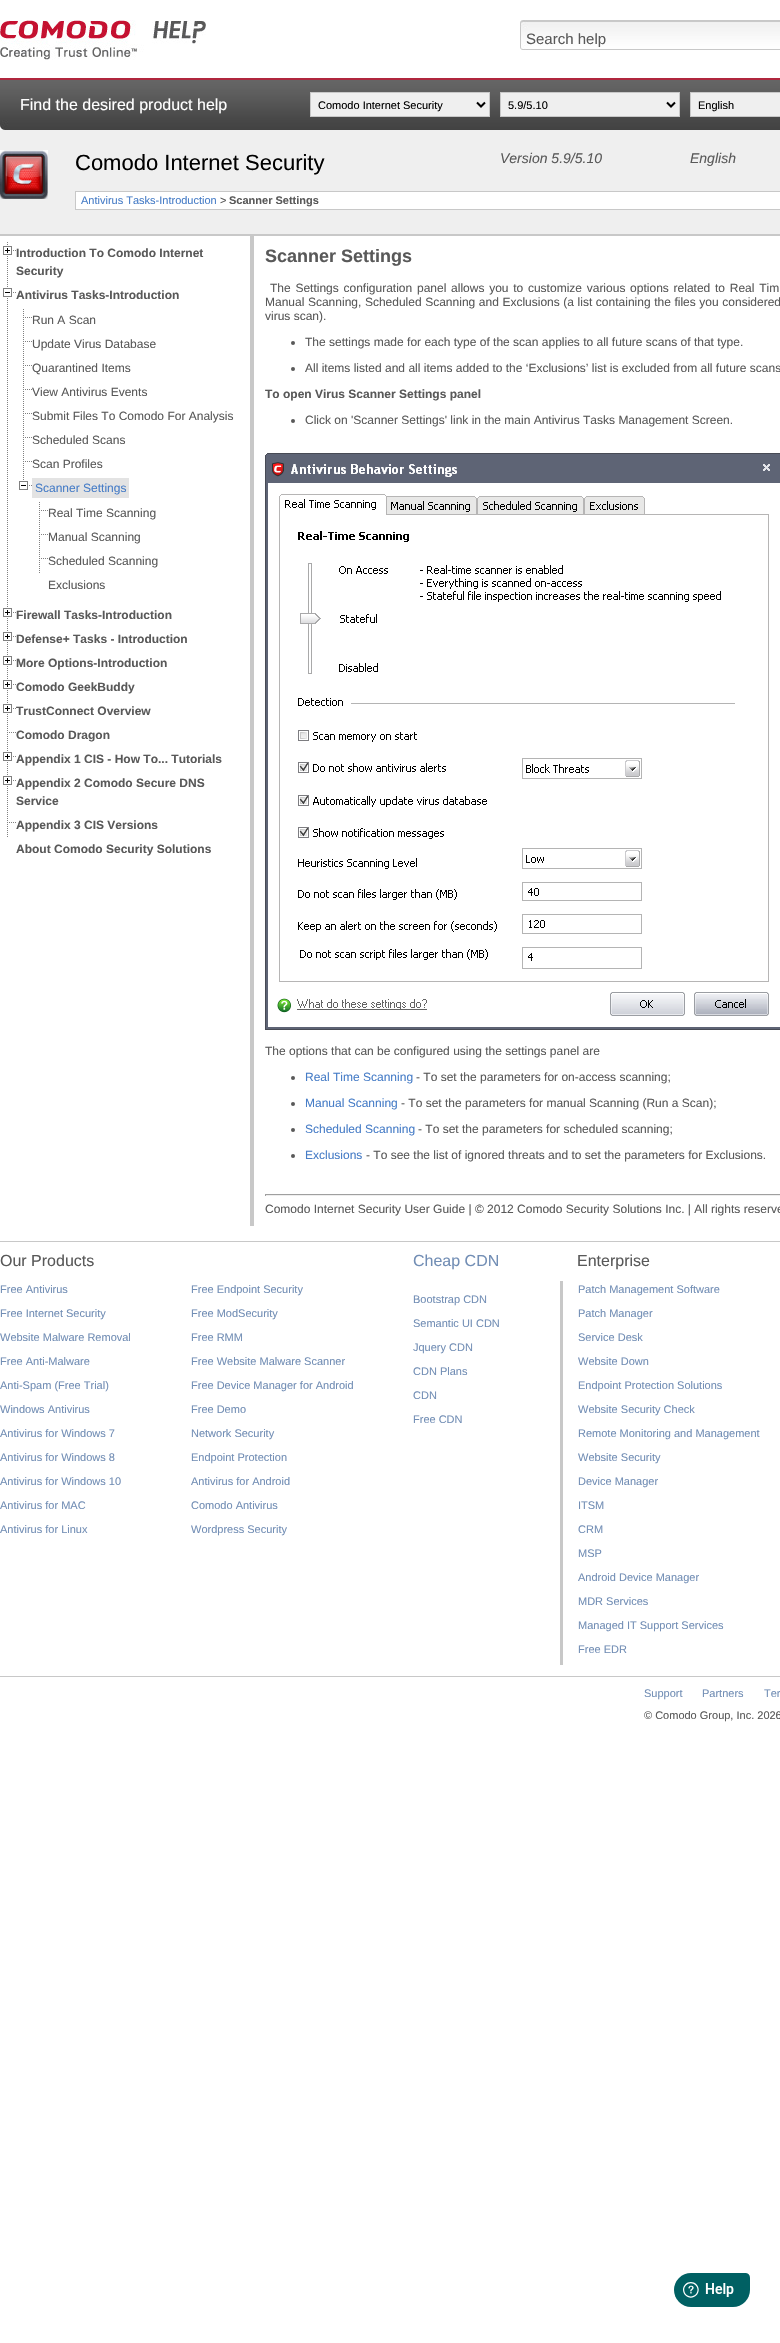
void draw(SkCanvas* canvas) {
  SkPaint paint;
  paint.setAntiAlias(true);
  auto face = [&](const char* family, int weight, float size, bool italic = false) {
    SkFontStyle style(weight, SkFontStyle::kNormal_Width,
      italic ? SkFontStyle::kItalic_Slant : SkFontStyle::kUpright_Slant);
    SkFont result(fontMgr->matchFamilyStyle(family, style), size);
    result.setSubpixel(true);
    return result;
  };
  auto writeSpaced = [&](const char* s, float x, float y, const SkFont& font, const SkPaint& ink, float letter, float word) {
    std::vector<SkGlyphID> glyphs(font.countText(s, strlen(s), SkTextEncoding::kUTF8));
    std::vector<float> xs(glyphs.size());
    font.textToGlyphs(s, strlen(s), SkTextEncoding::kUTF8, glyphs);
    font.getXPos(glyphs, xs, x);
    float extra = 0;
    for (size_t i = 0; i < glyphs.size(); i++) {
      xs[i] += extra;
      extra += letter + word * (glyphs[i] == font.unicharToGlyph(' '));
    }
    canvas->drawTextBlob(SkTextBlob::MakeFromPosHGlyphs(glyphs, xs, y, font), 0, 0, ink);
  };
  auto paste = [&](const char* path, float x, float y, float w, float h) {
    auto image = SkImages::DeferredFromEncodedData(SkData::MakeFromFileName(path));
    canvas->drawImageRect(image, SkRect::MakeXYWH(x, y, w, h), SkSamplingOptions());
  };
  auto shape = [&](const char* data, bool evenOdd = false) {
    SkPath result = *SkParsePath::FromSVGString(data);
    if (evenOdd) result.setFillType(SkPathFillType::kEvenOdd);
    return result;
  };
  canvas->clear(0xffffffff);
  paint.setColor(0xffb0263d);
  canvas->drawRect(SkRect::MakeXYWH(0, 78, 780, 2), paint);
  paste("img/1.png", 0, 20, 206, 40);
  paste("img/2.png", 520, 20, 260, 30);
  paste("img/3.png", 0, 80, 780, 50);
  paint.setColor(0xffefefef);
  canvas->drawRect(SkRect::MakeXYWH(310.5f, 92.5f, 179, 24), paint);
  paint.setStroke(true);
  paint.setStrokeWidth(1);
  paint.setColor(0xffc8c8c8);
  canvas->drawRect(SkRect::MakeXYWH(310.5f, 92.5f, 179, 24), paint);
  paint.setStrokeWidth(2);
  paint.setColor(0xff000000);
  canvas->drawPath(shape("M477 102.5L481 106.5L485 102.5"), paint);
  paint.setStroke(false);
  paint.setColor(0xffefefef);
  canvas->drawRect(SkRect::MakeXYWH(500.5f, 92.5f, 179, 24), paint);
  paint.setStroke(true);
  paint.setStrokeWidth(1);
  paint.setColor(0xffc8c8c8);
  canvas->drawRect(SkRect::MakeXYWH(500.5f, 92.5f, 179, 24), paint);
  paint.setStrokeWidth(2);
  paint.setColor(0xff000000);
  canvas->drawPath(shape("M667 102.5L671 106.5L675 102.5"), paint);
  paint.setStroke(false);
  paint.setColor(0xffefefef);
  canvas->drawRect(SkRect::MakeXYWH(690.5f, 92.5f, 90, 24), paint);
  paint.setStroke(true);
  paint.setStrokeWidth(1);
  paint.setColor(0xffc8c8c8);
  canvas->drawRect(SkRect::MakeXYWH(690.5f, 92.5f, 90, 24), paint);
  paint.setStroke(false);
  paint.setColor(0xffefefef);
  canvas->drawRect(SkRect::MakeXYWH(0, 130, 780, 104), paint);
  paint.setColor(0xffc8c8c8);
  canvas->drawRect(SkRect::MakeXYWH(0, 234, 780, 2), paint);
  paste("img/4.png", 0, 150, 48, 49);
  paint.setColor(0xffffffff);
  canvas->drawRect(SkRect::MakeXYWH(75.5f, 191.5f, 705, 18), paint);
  paint.setStroke(true);
  paint.setColor(0xffc8c8c8);
  canvas->drawRect(SkRect::MakeXYWH(75.5f, 191.5f, 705, 18), paint);
  paint.setStroke(false);
  canvas->drawRect(SkRect::MakeXYWH(250, 236, 4, 990), paint);
  paste("img/5.png", 7, 242, 1, 41);
  paste("img/6.png", 3, 246, 13, 9);
  paste("img/7.png", 7, 284, 1, 319);
  paste("img/8.png", 3, 288, 13, 9);
  paste("img/9.png", 23, 309, 9, 23);
  paste("img/9.png", 23, 333, 9, 23);
  paste("img/9.png", 23, 357, 9, 23);
  paste("img/9.png", 23, 381, 9, 23);
  paste("img/9.png", 23, 405, 9, 23);
  paste("img/9.png", 23, 429, 9, 23);
  paste("img/9.png", 23, 453, 9, 23);
  paste("img/10.png", 19, 477, 13, 13);
  paint.setColor(0xffe3e3e3);
  canvas->drawRect(SkRect::MakeXYWH(32, 478, 97, 20), paint);
  paste("img/9.png", 39, 502, 9, 23);
  paste("img/9.png", 39, 526, 9, 23);
  paste("img/9.png", 39, 550, 9, 23);
  paste("img/11.png", 7, 604, 1, 23);
  paste("img/6.png", 3, 608, 13, 9);
  paste("img/11.png", 7, 628, 1, 23);
  paste("img/6.png", 3, 632, 13, 9);
  paste("img/11.png", 7, 652, 1, 23);
  paste("img/6.png", 3, 656, 13, 9);
  paste("img/11.png", 7, 676, 1, 23);
  paste("img/6.png", 3, 680, 13, 9);
  paste("img/11.png", 7, 700, 1, 23);
  paste("img/6.png", 3, 704, 13, 9);
  paste("img/9.png", 7, 724, 9, 23);
  paste("img/11.png", 7, 748, 1, 23);
  paste("img/6.png", 3, 752, 13, 9);
  paste("img/5.png", 7, 772, 1, 41);
  paste("img/6.png", 3, 776, 13, 9);
  paste("img/9.png", 7, 814, 9, 23);
  paint.setColor(0xff595959);
  canvas->drawCircle(293, 343, 2, paint);
  canvas->drawCircle(293, 369, 2, paint);
  canvas->drawCircle(293, 421, 2, paint);
  paste("img/12.png", 265, 453, 515, 577);
  canvas->drawCircle(293, 1078, 2, paint);
  canvas->drawCircle(293, 1104, 2, paint);
  canvas->drawCircle(293, 1130, 2, paint);
  canvas->drawCircle(293, 1156, 2, paint);
  {
    const struct { float x, y, w, h; SkColor color; } items[] = {
      {265, 1194, 515, 1, 0xff9f9f9f},
      {265, 1195, 515, 1, 0xffeeeeee},
      {265, 1194, 1, 2, 0xff9f9f9f},
      {0, 1241, 780, 1, 0xffc8c8c8},
      {560, 1281, 3, 384, 0xffc8c8c8},
      {0, 1676, 780, 1, 0xffc8c8c8},
    };
    for (auto [x, y, w, h, color] : items) {
      paint.setColor(color);
      canvas->drawRect(SkRect::MakeXYWH(x, y, w, h), paint);
    }
  }
  paste("img/13.png", 674, 2273, 76, 34);
  auto f0 = face("Liberation Sans", 400, 15);
  paint.setColor(0xff595959);
  canvas->drawString("Search help", 526, 44, f0, paint);
  auto f1 = face("Liberation Sans", 400, 16);
  paint.setColor(0xffffffff);
  canvas->drawString("Find the desired product help", 20, 110, f1, paint);
  auto f2 = face("Liberation Sans", 400, 11);
  paint.setColor(0xff000000);
  {
    const struct { const char* s; float x, y; } items[] = {
      {"Comodo Internet Security", 318, 109},
      {"5.9/5.10", 508, 109},
      {"English", 698, 109},
    };
    for (auto [s, x, y] : items) {
      canvas->drawString(s, x, y, f2, paint);
    }
  }
  auto f3 = face("Liberation Sans", 400, 22);
  canvas->drawString("Comodo Internet Security", 75, 170, f3, paint);
  auto f4 = face("Liberation Sans", 400, 14, true);
  paint.setColor(0xff595959);
  canvas->drawString("Version 5.9/5.10", 500, 163, f4, paint);
  canvas->drawString("English", 690, 163, f4, paint);
  paint.setColor(0xff477dc7);
  canvas->drawString("Antivirus Tasks-Introduction", 81, 204, f2, paint);
  paint.setColor(0xff595959);
  canvas->drawString(">", 220, 204, f2, paint);
  auto f5 = face("Liberation Sans", 700, 11);
  canvas->drawString("Scanner Settings", 229, 204, f5, paint);
  auto f6 = face("Liberation Sans", 700, 12);
  {
    const struct { const char* s; float x, y; } items[] = {
      {"Introduction To Comodo Internet", 16, 257},
      {"Security", 16, 275},
      {"Antivirus Tasks-Introduction", 16, 299},
    };
    for (auto [s, x, y] : items) {
      canvas->drawString(s, x, y, f6, paint);
    }
  }
  auto f7 = face("Liberation Sans", 400, 12);
  {
    const struct { const char* s; float x, y; } items[] = {
      {"Run A Scan", 32, 324},
      {"Update Virus Database", 32, 348},
      {"Quarantined Items", 32, 372},
      {"View Antivirus Events", 32, 396},
      {"Submit Files To Comodo For Analysis", 32, 420},
      {"Scheduled Scans", 32, 444},
      {"Scan Profiles", 32, 468},
    };
    for (auto [s, x, y] : items) {
      canvas->drawString(s, x, y, f7, paint);
    }
  }
  paint.setColor(0xff477dc7);
  canvas->drawString("Scanner Settings", 35, 492, f7, paint);
  paint.setColor(0xff595959);
  {
    const struct { const char* s; float x, y; } items[] = {
      {"Real Time Scanning", 48, 517},
      {"Manual Scanning", 48, 541},
      {"Scheduled Scanning", 48, 565},
      {"Exclusions", 48, 589},
    };
    for (auto [s, x, y] : items) {
      canvas->drawString(s, x, y, f7, paint);
    }
  }
  {
    const struct { const char* s; float x, y; } items[] = {
      {"Firewall Tasks-Introduction", 16, 619},
      {"Defense+ Tasks - Introduction", 16, 643},
      {"More Options-Introduction", 16, 667},
      {"Comodo GeekBuddy", 16, 691},
      {"TrustConnect Overview", 16, 715},
      {"Comodo Dragon", 16, 739},
      {"Appendix 1 CIS - How To... Tutorials", 16, 763},
      {"Appendix 2 Comodo Secure DNS", 16, 787},
      {"Service", 16, 805},
      {"Appendix 3 CIS Versions", 16, 829},
      {"About Comodo Security Solutions", 16, 853},
    };
    for (auto [s, x, y] : items) {
      canvas->drawString(s, x, y, f6, paint);
    }
  }
  auto f8 = face("Liberation Sans", 700, 18);
  canvas->drawString("Scanner Settings", 265, 262, f8, paint);
  writeSpaced("The Settings configuration panel allows you to customize various options related to Real Tim", 270, 292, f7, paint, 0, 1.4f);
  writeSpaced("Manual Scanning, Scheduled Scanning and Exclusions (a list containing the files you considered", 265, 306, f7, paint, 0, 0.25f);
  {
    const struct { const char* s; float x, y; } items[] = {
      {"virus scan).", 265, 320},
      {"The settings made for each type of the scan applies to all future scans of that type.", 305, 346},
      {"All items listed and all items added to the ‘Exclusions’ list is excluded from all future scans", 305, 372},
    };
    for (auto [s, x, y] : items) {
      canvas->drawString(s, x, y, f7, paint);
    }
  }
  canvas->drawString("To open Virus Scanner Settings panel", 265, 398, f6, paint);
  canvas->drawString("Click on 'Scanner Settings' link in the main Antivirus Tasks Management Screen.", 305, 424, f7, paint);
  canvas->drawString("The options that can be configured using the settings panel are", 265, 1055, f7, paint);
  paint.setColor(0xff477dc7);
  canvas->drawString("Real Time Scanning", 305, 1081, f7, paint);
  paint.setColor(0xff595959);
  canvas->drawString("- To set the parameters for on-access scanning;", 416, 1081, f7, paint);
  paint.setColor(0xff477dc7);
  canvas->drawString("Manual Scanning", 305, 1107, f7, paint);
  paint.setColor(0xff595959);
  canvas->drawString("- To set the parameters for manual Scanning (Run a Scan);", 401, 1107, f7, paint);
  paint.setColor(0xff477dc7);
  canvas->drawString("Scheduled Scanning", 305, 1133, f7, paint);
  paint.setColor(0xff595959);
  canvas->drawString("- To set the parameters for scheduled scanning;", 418, 1133, f7, paint);
  paint.setColor(0xff477dc7);
  canvas->drawString("Exclusions", 305, 1159, f7, paint);
  paint.setColor(0xff595959);
  canvas->drawString("- To see the list of ignored threats and to set the parameters for Exclusions.", 366, 1159, f7, paint);
  canvas->drawString("Comodo Internet Security User Guide | © 2012 Comodo Security Solutions Inc. | All rights reserve", 265, 1213, f7, paint);
  canvas->drawString("Our Products", 0, 1266, f1, paint);
  paint.setColor(0xff728eb5);
  {
    const struct { const char* s; float x, y; } items[] = {
      {"Free Antivirus", 0, 1293},
      {"Free Internet Security", 0, 1317},
      {"Website Malware Removal", 0, 1341},
      {"Free Anti-Malware", 0, 1365},
      {"Anti-Spam (Free Trial)", 0, 1389},
      {"Windows Antivirus", 0, 1413},
      {"Antivirus for Windows 7", 0, 1437},
      {"Antivirus for Windows 8", 0, 1461},
      {"Antivirus for Windows 10", 0, 1485},
      {"Antivirus for MAC", 0, 1509},
      {"Antivirus for Linux", 0, 1533},
      {"Free Endpoint Security", 191, 1293},
      {"Free ModSecurity", 191, 1317},
      {"Free RMM", 191, 1341},
      {"Free Website Malware Scanner", 191, 1365},
      {"Free Device Manager for Android", 191, 1389},
      {"Free Demo", 191, 1413},
      {"Network Security", 191, 1437},
      {"Endpoint Protection", 191, 1461},
      {"Antivirus for Android", 191, 1485},
      {"Comodo Antivirus", 191, 1509},
      {"Wordpress Security", 191, 1533},
    };
    for (auto [s, x, y] : items) {
      canvas->drawString(s, x, y, f2, paint);
    }
  }
  canvas->drawString("Cheap CDN", 413, 1266, f1, paint);
  {
    const struct { const char* s; float x, y; } items[] = {
      {"Bootstrap CDN", 413, 1303},
      {"Semantic UI CDN", 413, 1327},
      {"Jquery CDN", 413, 1351},
      {"CDN Plans", 413, 1375},
      {"CDN", 413, 1399},
      {"Free CDN", 413, 1423},
    };
    for (auto [s, x, y] : items) {
      canvas->drawString(s, x, y, f2, paint);
    }
  }
  paint.setColor(0xff595959);
  canvas->drawString("Enterprise", 577, 1266, f1, paint);
  paint.setColor(0xff728eb5);
  {
    const struct { const char* s; float x, y; } items[] = {
      {"Patch Management Software", 578, 1293},
      {"Patch Manager", 578, 1317},
      {"Service Desk", 578, 1341},
      {"Website Down", 578, 1365},
      {"Endpoint Protection Solutions", 578, 1389},
      {"Website Security Check", 578, 1413},
      {"Remote Monitoring and Management", 578, 1437},
      {"Website Security", 578, 1461},
      {"Device Manager", 578, 1485},
      {"ITSM", 578, 1509},
      {"CRM", 578, 1533},
      {"MSP", 578, 1557},
      {"Android Device Manager", 578, 1581},
      {"MDR Services", 578, 1605},
      {"Managed IT Support Services", 578, 1629},
      {"Free EDR", 578, 1653},
      {"Support", 644, 1697},
      {"Partners", 702, 1697},
      {"Ter", 764, 1697},
    };
    for (auto [s, x, y] : items) {
      canvas->drawString(s, x, y, f2, paint);
    }
  }
  paint.setColor(0xff595959);
  canvas->drawString("© Comodo Group, Inc. 2026", 644, 1719, f2, paint);
}
